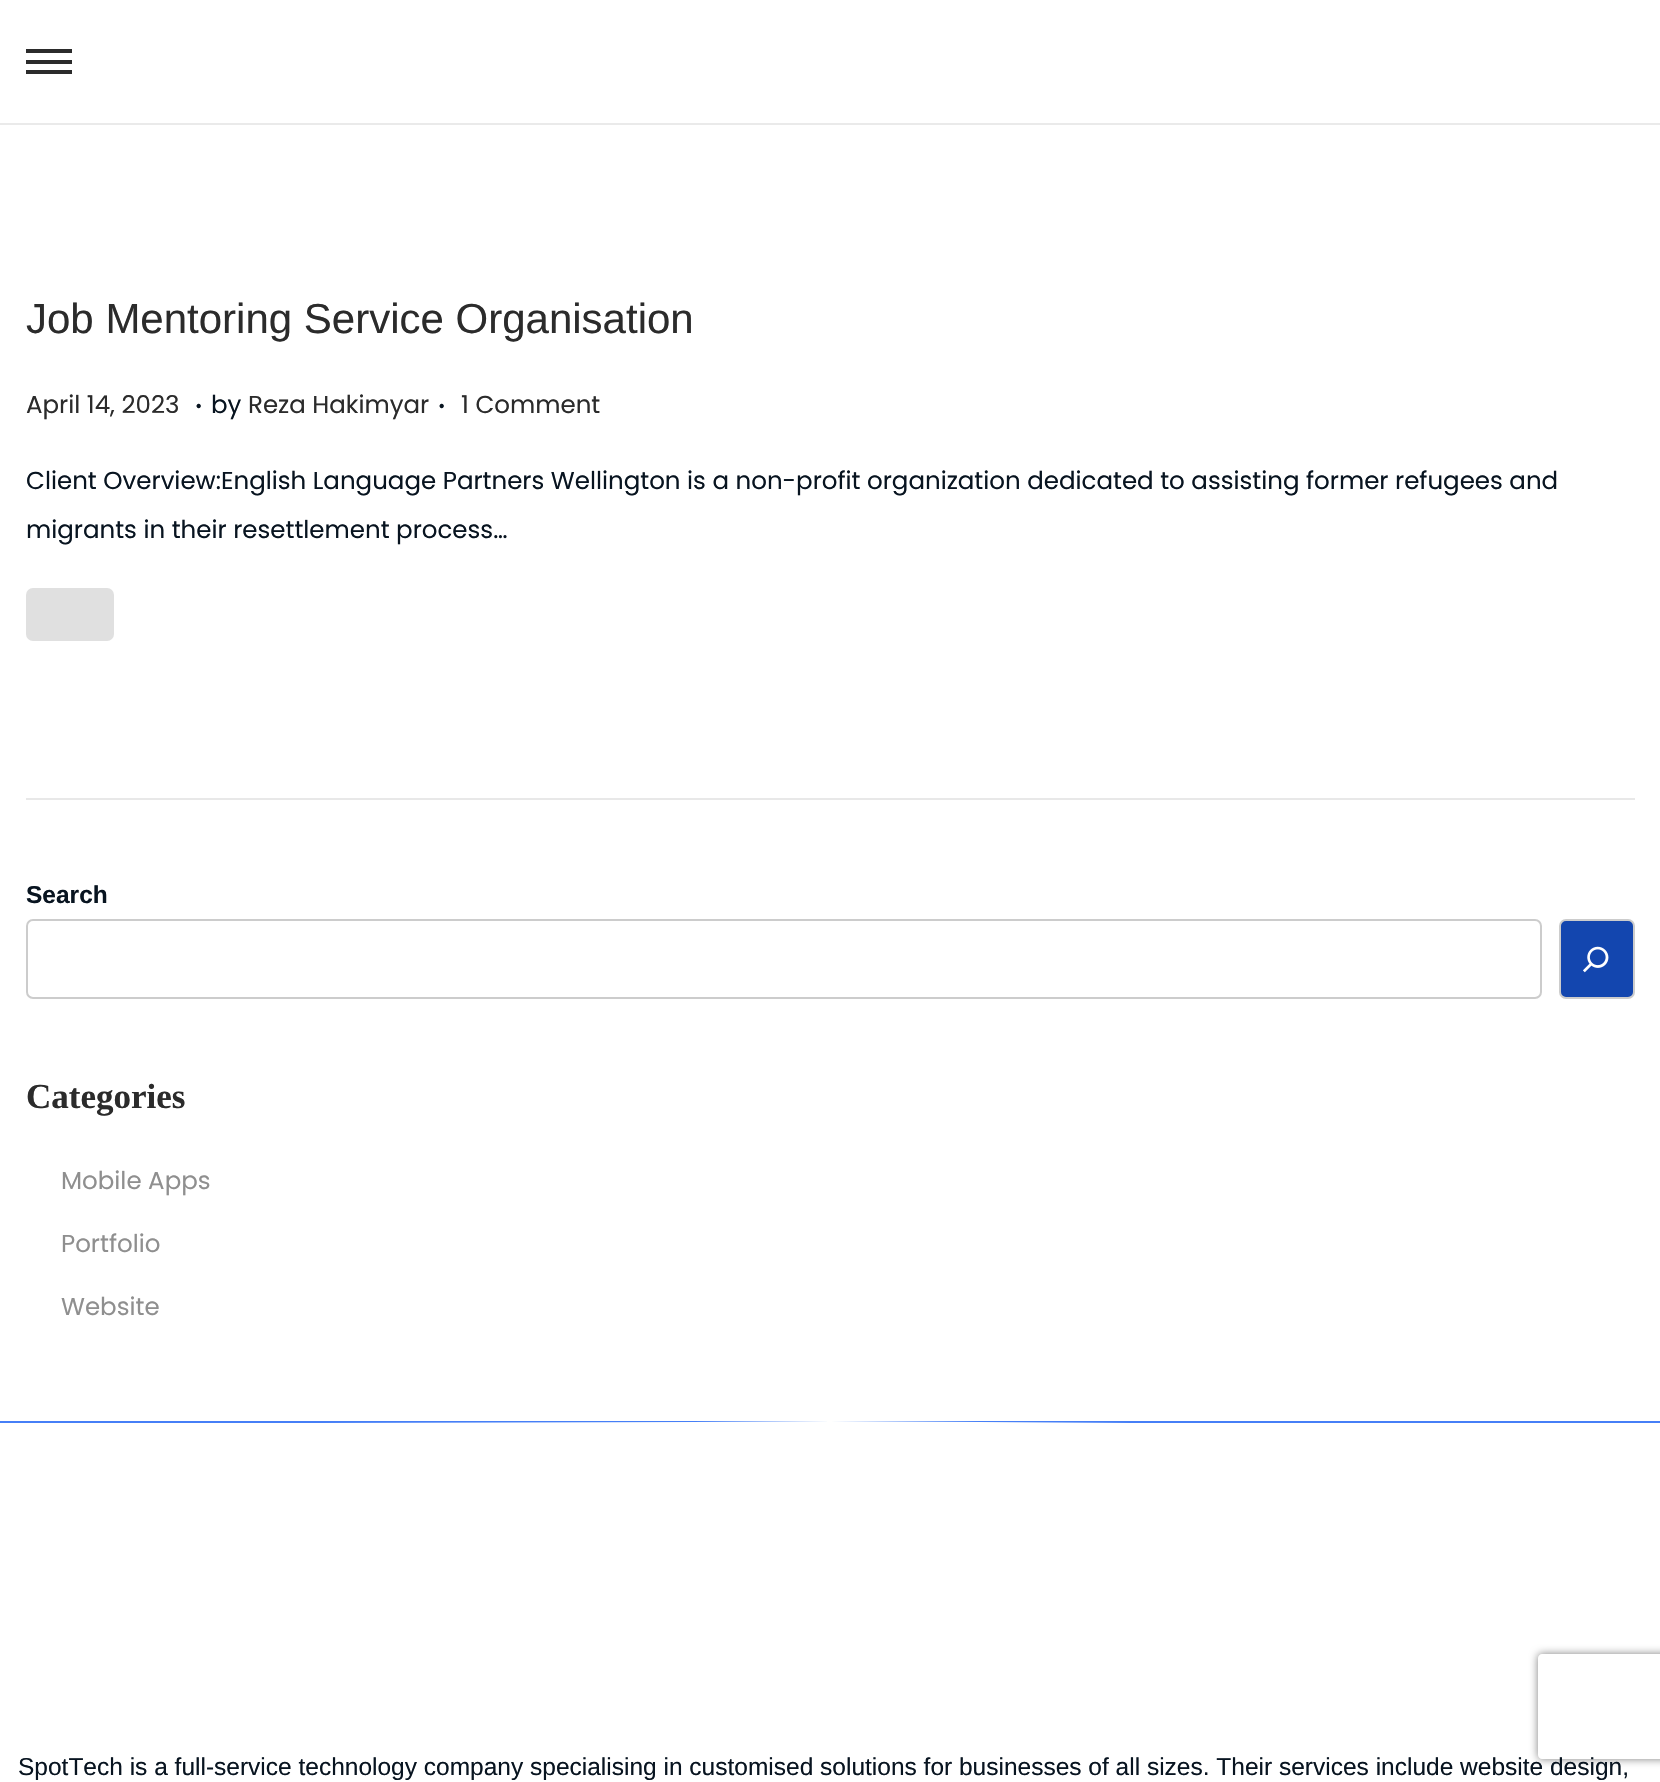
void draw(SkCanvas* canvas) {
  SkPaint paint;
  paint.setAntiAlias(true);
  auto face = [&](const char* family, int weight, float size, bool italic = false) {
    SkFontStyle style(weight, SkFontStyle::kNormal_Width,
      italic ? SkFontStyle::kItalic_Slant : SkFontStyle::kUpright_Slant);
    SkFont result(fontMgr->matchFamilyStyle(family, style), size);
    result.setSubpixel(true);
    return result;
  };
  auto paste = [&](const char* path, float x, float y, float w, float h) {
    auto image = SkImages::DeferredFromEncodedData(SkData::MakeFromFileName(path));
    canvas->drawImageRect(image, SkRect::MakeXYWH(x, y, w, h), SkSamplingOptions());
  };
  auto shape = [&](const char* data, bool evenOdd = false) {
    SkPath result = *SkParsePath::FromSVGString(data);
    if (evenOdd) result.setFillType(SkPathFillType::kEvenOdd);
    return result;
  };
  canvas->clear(0xffffffff);
  {
    const struct { float x, y, w, h; SkColor color; } items[] = {
      {0, 123, 1660, 2, 0xffeaeaea},
      {26, 60, 46, 4, 0xff2b2b2b},
      {26, 49, 46, 4, 0xff2b2b2b},
      {26, 70, 46, 4, 0xff2b2b2b},
      {26, 798, 1609, 2, 0xffe8e8e8},
    };
    for (auto [x, y, w, h, color] : items) {
      paint.setColor(color);
      canvas->drawRect(SkRect::MakeXYWH(x, y, w, h), paint);
    }
  }
  paint.setColor(0xffe0e0e0);
  canvas->drawRoundRect(SkRect::MakeXYWH(26, 588, 88, 53), 7, 7, paint);
  paint.setStroke(true);
  paint.setStrokeWidth(2);
  paint.setColor(0xffcccccc);
  canvas->drawRoundRect(SkRect::MakeXYWH(27, 920, 1514, 78), 6, 6, paint);
  paint.setStroke(false);
  paint.setColor(0xff1346af);
  canvas->drawRoundRect(SkRect::MakeXYWH(1560, 920, 74, 78), 6, 6, paint);
  paint.setStroke(true);
  paint.setColor(0xffcccccc);
  canvas->drawRoundRect(SkRect::MakeXYWH(1560, 920, 74, 78), 6, 6, paint);
  paste("img/1.png", 1583, 946, 26, 27);
  paint.setStroke(false);
  paint.setColor(0xff467ff7);
  canvas->drawPath(shape("M322 1423L693 1422L831 1421L1130 1423H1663V1421H0V1423Z"), paint);
  canvas->save();
  canvas->clipPath(shape("M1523 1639H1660V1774H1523ZM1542 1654H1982C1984 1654 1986 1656 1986 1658V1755C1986 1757 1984 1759 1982 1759H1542C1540 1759 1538 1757 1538 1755V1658C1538 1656 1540 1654 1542 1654Z", true), true);
  paint.setColor(0xff808080);
  paint.setMaskFilter(SkMaskFilter::MakeBlur(kNormal_SkBlurStyle, 4.5f));
  canvas->drawRoundRect(SkRect::MakeXYWH(1538, 1654, 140, 105), 4, 4, paint);
  paint.setMaskFilter(nullptr);
  canvas->restore();
  auto f0 = face("Liberation Sans", 400, 42);
  paint.setColor(0xff2b2b2b);
  canvas->drawString("Job Mentoring Service Organisation", 26, 333, f0, paint);
  auto f1 = face("Poppins", 400, 24.5f);
  canvas->drawString("April 14, 2023", 26, 413, f1, paint);
  auto f2 = face("Poppins", 400, 35);
  paint.setColor(0xff081420);
  canvas->drawString(".", 195, 408, f2, paint);
  canvas->drawString("by", 211, 413, f1, paint);
  paint.setColor(0xff2b2b2b);
  canvas->drawString("Reza Hakimyar", 248, 413, f1, paint);
  paint.setColor(0xff081420);
  canvas->drawString(".", 438, 408, f2, paint);
  paint.setColor(0xff2b2b2b);
  canvas->drawString("1 Comment", 461, 413, f1, paint);
  paint.setColor(0xff081420);
  canvas->drawString("Client Overview:English Language Partners Wellington is a non-profit organization dedicated to assisting former refugees and", 26, 489, f1, paint);
  canvas->drawString("migrants in their resettlement process…", 26, 538, f1, paint);
  auto f3 = face("Liberation Sans", 700, 24.5f);
  canvas->drawString("Search", 26, 903, f3, paint);
  auto f4 = face("Liberation Serif", 700, 35);
  paint.setColor(0xff2b2b2b);
  canvas->drawString("Categories", 26, 1108, f4, paint);
  paint.setColor(0xff8f8f8f);
  {
    const struct { const char* s; float x, y; } items[] = {
      {"Mobile Apps", 61, 1189},
      {"Portfolio", 61, 1252},
      {"Website", 61, 1315},
    };
    for (auto [s, x, y] : items) {
      canvas->drawString(s, x, y, f1, paint);
    }
  }
  auto f5 = face("Liberation Sans", 400, 24.5f);
  paint.setColor(0xff081420);
  canvas->drawString("SpotTech is a full-service technology company specialising in customised solutions for businesses of all sizes. Their services include website design,", 18, 1775, f5, paint);
}
